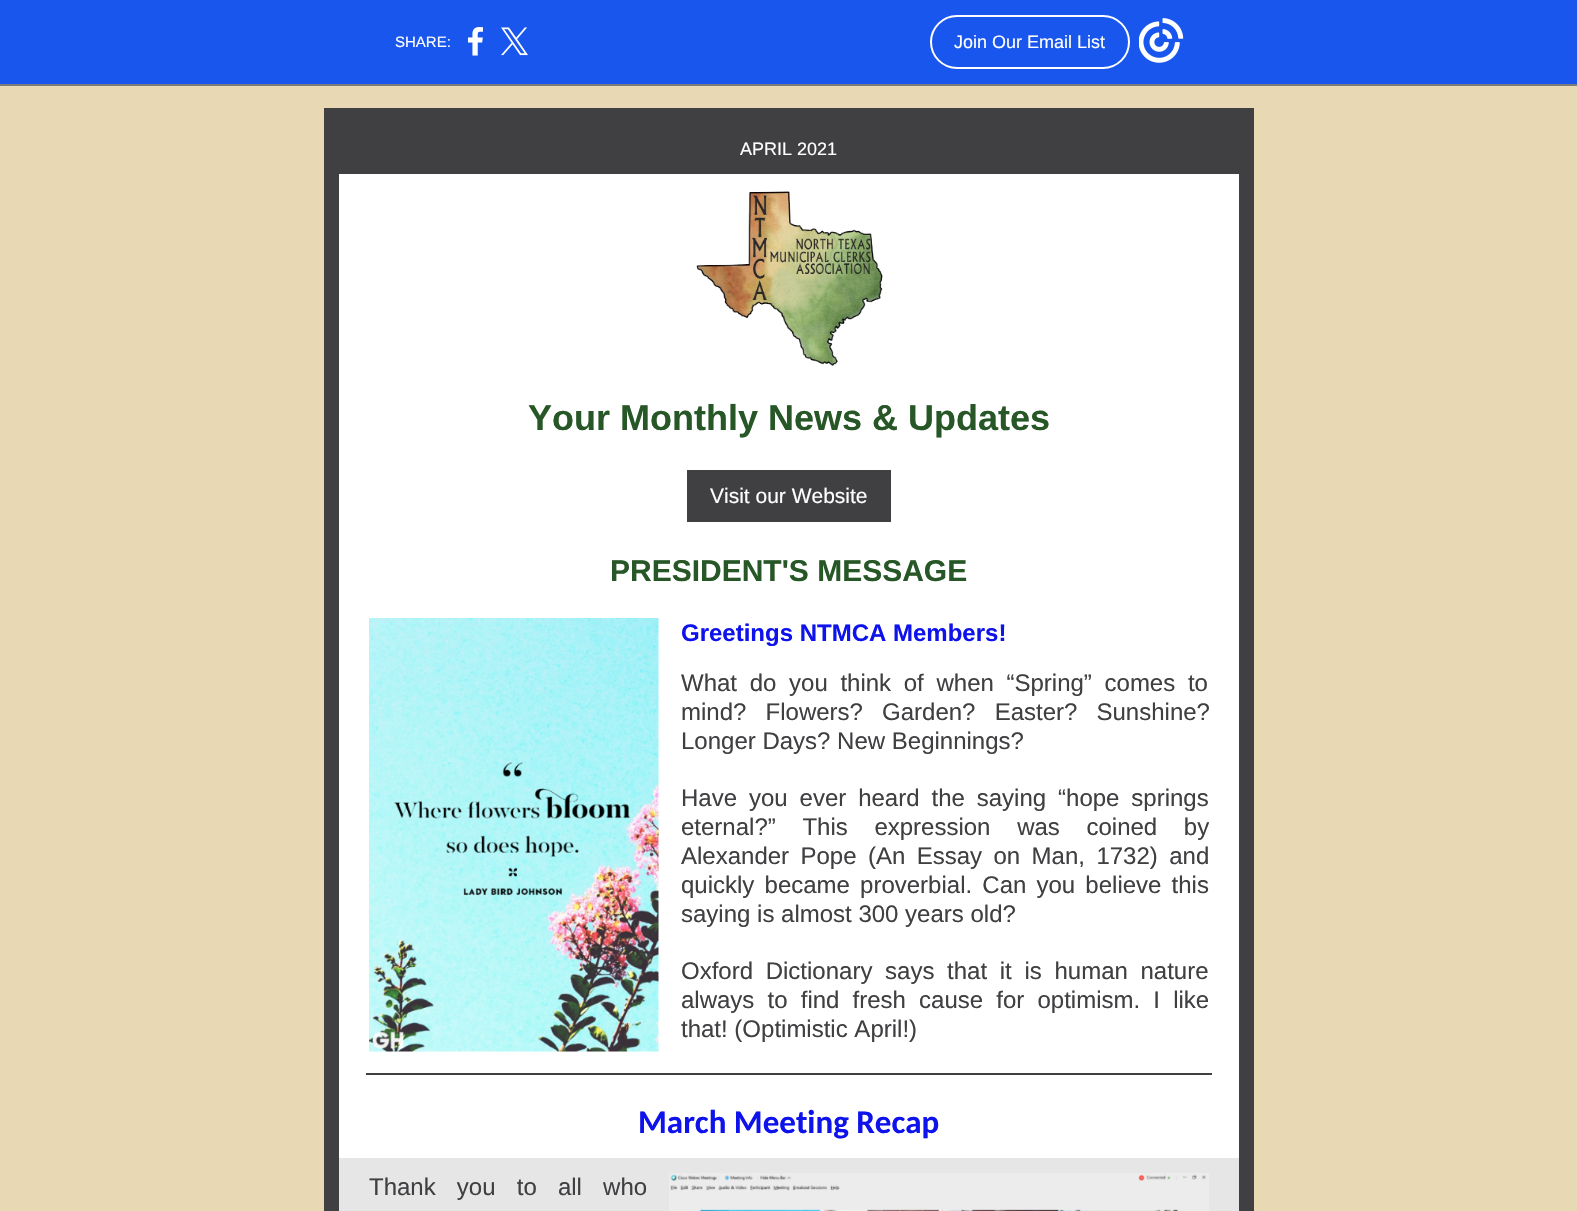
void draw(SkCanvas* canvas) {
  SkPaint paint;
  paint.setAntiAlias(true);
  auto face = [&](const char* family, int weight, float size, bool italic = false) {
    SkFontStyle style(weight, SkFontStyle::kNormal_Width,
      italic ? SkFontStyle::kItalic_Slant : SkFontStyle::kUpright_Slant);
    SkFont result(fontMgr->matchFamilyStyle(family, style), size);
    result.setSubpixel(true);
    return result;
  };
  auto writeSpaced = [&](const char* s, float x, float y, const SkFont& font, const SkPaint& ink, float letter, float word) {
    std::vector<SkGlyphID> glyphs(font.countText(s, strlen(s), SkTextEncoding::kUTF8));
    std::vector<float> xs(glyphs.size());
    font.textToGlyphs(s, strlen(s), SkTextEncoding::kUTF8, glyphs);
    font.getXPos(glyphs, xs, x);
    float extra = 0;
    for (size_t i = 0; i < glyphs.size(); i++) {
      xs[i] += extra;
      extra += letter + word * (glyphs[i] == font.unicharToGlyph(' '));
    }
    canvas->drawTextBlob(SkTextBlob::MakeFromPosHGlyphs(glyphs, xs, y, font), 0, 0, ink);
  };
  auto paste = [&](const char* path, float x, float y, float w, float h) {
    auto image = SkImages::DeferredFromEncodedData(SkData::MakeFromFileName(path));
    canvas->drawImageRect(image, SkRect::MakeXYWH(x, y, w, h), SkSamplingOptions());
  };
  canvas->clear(0xffe8d8b3);
  paint.setColor(0xff1856ed);
  canvas->drawRect(SkRect::MakeXYWH(0, 0, 1577, 84), paint);
  paint.setColor(0xff7a7a7a);
  canvas->drawRect(SkRect::MakeXYWH(0, 84, 1577, 2), paint);
  paste("img/1.png", 468, 27, 15, 29);
  paste("img/2.png", 501, 27, 27, 29);
  paint.setStroke(true);
  paint.setStrokeWidth(2);
  paint.setColor(0xffffffff);
  canvas->drawRoundRect(SkRect::MakeXYWH(931, 16, 198, 52), 26, 26, paint);
  paste("img/3.png", 1139, 18, 45, 45);
  paint.setStroke(false);
  paint.setColor(0xff403f42);
  canvas->drawRect(SkRect::MakeXYWH(324, 108, 930, 1103), paint);
  paint.setColor(0xffffffff);
  canvas->drawRect(SkRect::MakeXYWH(339, 174, 900, 984), paint);
  paste("img/4.png", 696, 191, 187, 175);
  paint.setColor(0xff403f42);
  canvas->drawRect(SkRect::MakeXYWH(687, 470, 204, 52), paint);
  paste("img/5.png", 369, 618, 290, 434);
  canvas->drawRect(SkRect::MakeXYWH(366, 1073, 846, 2), paint);
  paint.setColor(0xffe6e6e6);
  canvas->drawRect(SkRect::MakeXYWH(339, 1158, 900, 53), paint);
  paste("img/6.png", 669, 1173, 540, 38);
  auto f0 = face("Liberation Sans", 400, 15);
  paint.setColor(0xffffffff);
  canvas->drawString("SHARE:", 395, 47, f0, paint);
  auto f1 = face("Liberation Sans", 400, 18);
  canvas->drawString("Join Our Email List", 954, 48, f1, paint);
  canvas->drawString("APRIL 2021", 740, 155, f1, paint);
  auto f2 = face("Liberation Sans", 700, 36);
  paint.setColor(0xff275627);
  canvas->drawString("Your Monthly News & Updates", 528, 430, f2, paint);
  auto f3 = face("Liberation Sans", 400, 21);
  paint.setColor(0xffffffff);
  canvas->drawString("Visit our Website", 710, 503, f3, paint);
  auto f4 = face("Liberation Sans", 700, 30);
  paint.setColor(0xff275627);
  canvas->drawString("PRESIDENT'S MESSAGE", 610, 581, f4, paint);
  auto f5 = face("Liberation Sans", 700, 24);
  paint.setColor(0xff0e12eb);
  canvas->drawString("Greetings NTMCA Members!", 681, 641, f5, paint);
  auto f6 = face("Liberation Sans", 400, 24);
  paint.setColor(0xff403f42);
  writeSpaced("What do you think of when “Spring” comes to", 681, 691, f6, paint, 0, 6);
  writeSpaced("mind? Flowers? Garden? Easter? Sunshine?", 681, 720, f6, paint, 0, 12.5f);
  canvas->drawString("Longer Days? New Beginnings?", 681, 749, f6, paint);
  writeSpaced("Have you ever heard the saying “hope springs", 681, 806, f6, paint, 0, 5.25f);
  writeSpaced("eternal?” This expression was coined by", 681, 835, f6, paint, 0, 20);
  writeSpaced("Alexander Pope (An Essay on Man, 1732) and", 681, 864, f6, paint, 0, 4.75f);
  writeSpaced("quickly became proverbial. Can you believe this", 681, 893, f6, paint, 0, 3.5f);
  canvas->drawString("saying is almost 300 years old?", 681, 922, f6, paint);
  writeSpaced("Oxford Dictionary says that it is human nature", 681, 979, f6, paint, 0, 6);
  writeSpaced("always to find fresh cause for optimism. I like", 681, 1008, f6, paint, 0, 6.5f);
  canvas->drawString("that! (Optimistic April!)", 681, 1037, f6, paint);
  auto f7 = face("Carlito", 700, 33);
  paint.setColor(0xff0e12eb);
  canvas->drawString("March Meeting Recap", 638, 1133, f7, paint);
  paint.setColor(0xff403f42);
  writeSpaced("Thank you to all who", 369, 1195, f6, paint, 0, 14.5f);
}
